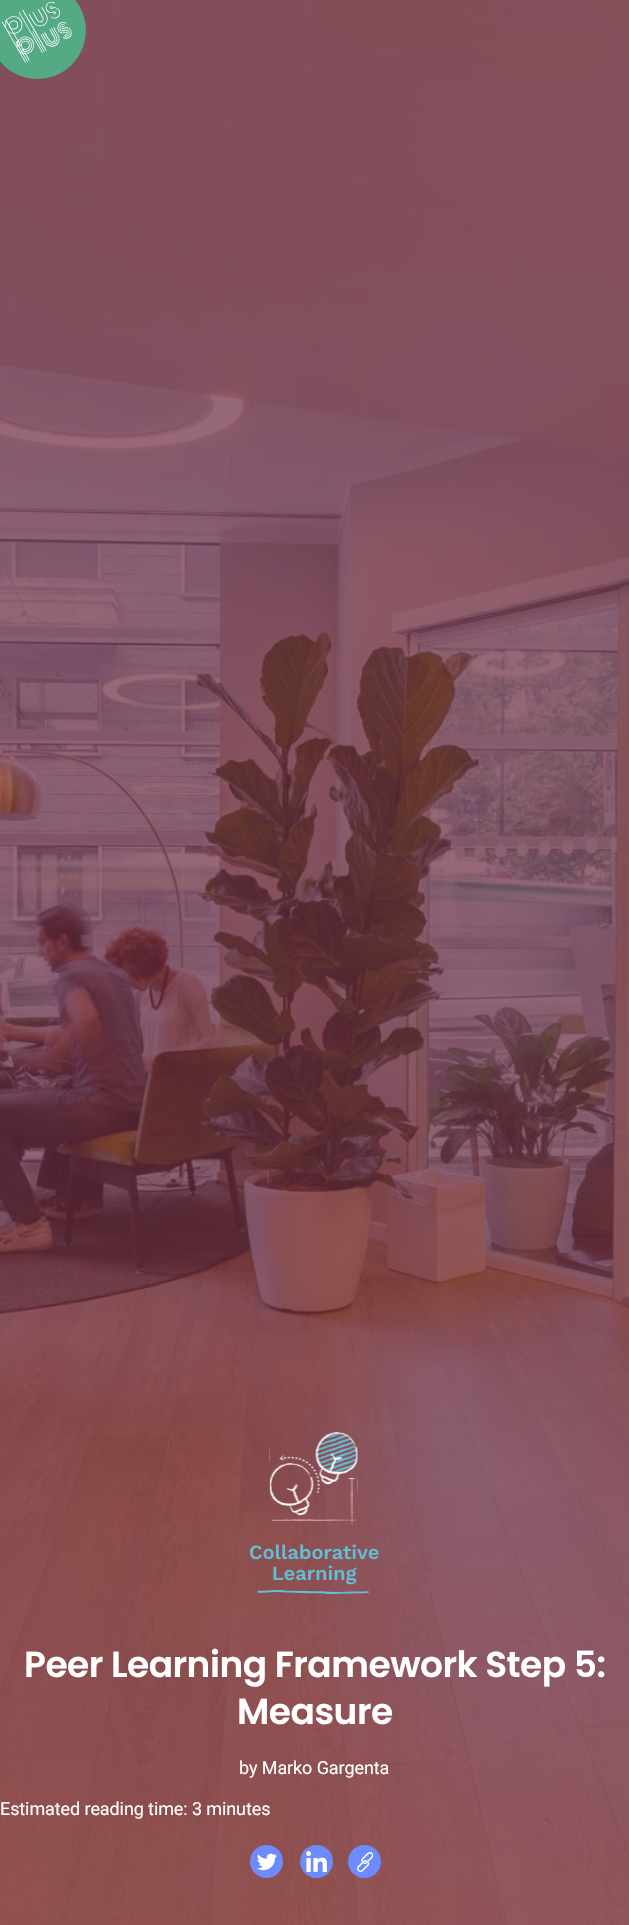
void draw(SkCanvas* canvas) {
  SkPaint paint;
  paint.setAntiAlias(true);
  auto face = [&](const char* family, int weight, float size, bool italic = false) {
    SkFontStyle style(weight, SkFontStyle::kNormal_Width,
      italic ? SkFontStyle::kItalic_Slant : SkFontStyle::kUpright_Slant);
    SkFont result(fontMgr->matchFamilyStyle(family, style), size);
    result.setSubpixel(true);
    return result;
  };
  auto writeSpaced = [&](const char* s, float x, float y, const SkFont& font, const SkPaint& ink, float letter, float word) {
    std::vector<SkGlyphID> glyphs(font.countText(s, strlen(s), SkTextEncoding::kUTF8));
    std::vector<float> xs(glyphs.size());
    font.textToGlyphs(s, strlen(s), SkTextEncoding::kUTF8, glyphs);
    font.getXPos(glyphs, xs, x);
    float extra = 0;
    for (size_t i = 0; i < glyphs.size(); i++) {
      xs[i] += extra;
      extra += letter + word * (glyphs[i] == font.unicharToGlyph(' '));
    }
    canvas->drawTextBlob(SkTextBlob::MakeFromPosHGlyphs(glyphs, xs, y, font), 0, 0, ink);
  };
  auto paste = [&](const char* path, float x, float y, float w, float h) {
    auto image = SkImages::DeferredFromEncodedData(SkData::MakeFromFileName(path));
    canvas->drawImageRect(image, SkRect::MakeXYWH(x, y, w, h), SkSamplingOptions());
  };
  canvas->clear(0xffffffff);
  paste("img/2.png", 0, 0, 629, 1925);
  paste("img/1.png", 0, 0, 86, 79);
  paste("img/3.png", 250, 1432, 129, 162);
  paint.setColor(0xff6b8bfe);
  canvas->drawCircle(266.5f, 1861.5f, 16.5f, paint);
  paste("img/4.png", 257, 1853, 20, 18);
  canvas->drawCircle(316.5f, 1861.5f, 16.5f, paint);
  paste("img/5.png", 306, 1851, 21, 21);
  canvas->drawCircle(364.5f, 1861.5f, 16.5f, paint);
  paste("img/6.png", 357, 1852, 16, 20);
  auto f0 = face("Poppins", 600, 36);
  paint.setColor(0xffffffff);
  writeSpaced("Peer Learning Framework Step 5:", 24, 1677, f0, paint, -0.5f, 0);
  writeSpaced("Measure", 237, 1724, f0, paint, -0.5f, 0);
  auto f1 = face("Roboto", 400, 18);
  writeSpaced("by Marko Gargenta", 239, 1774, f1, paint, -0.1f, 0);
  writeSpaced("Estimated reading time: 3 minutes", 0, 1815, f1, paint, -0.1f, 0);
}
